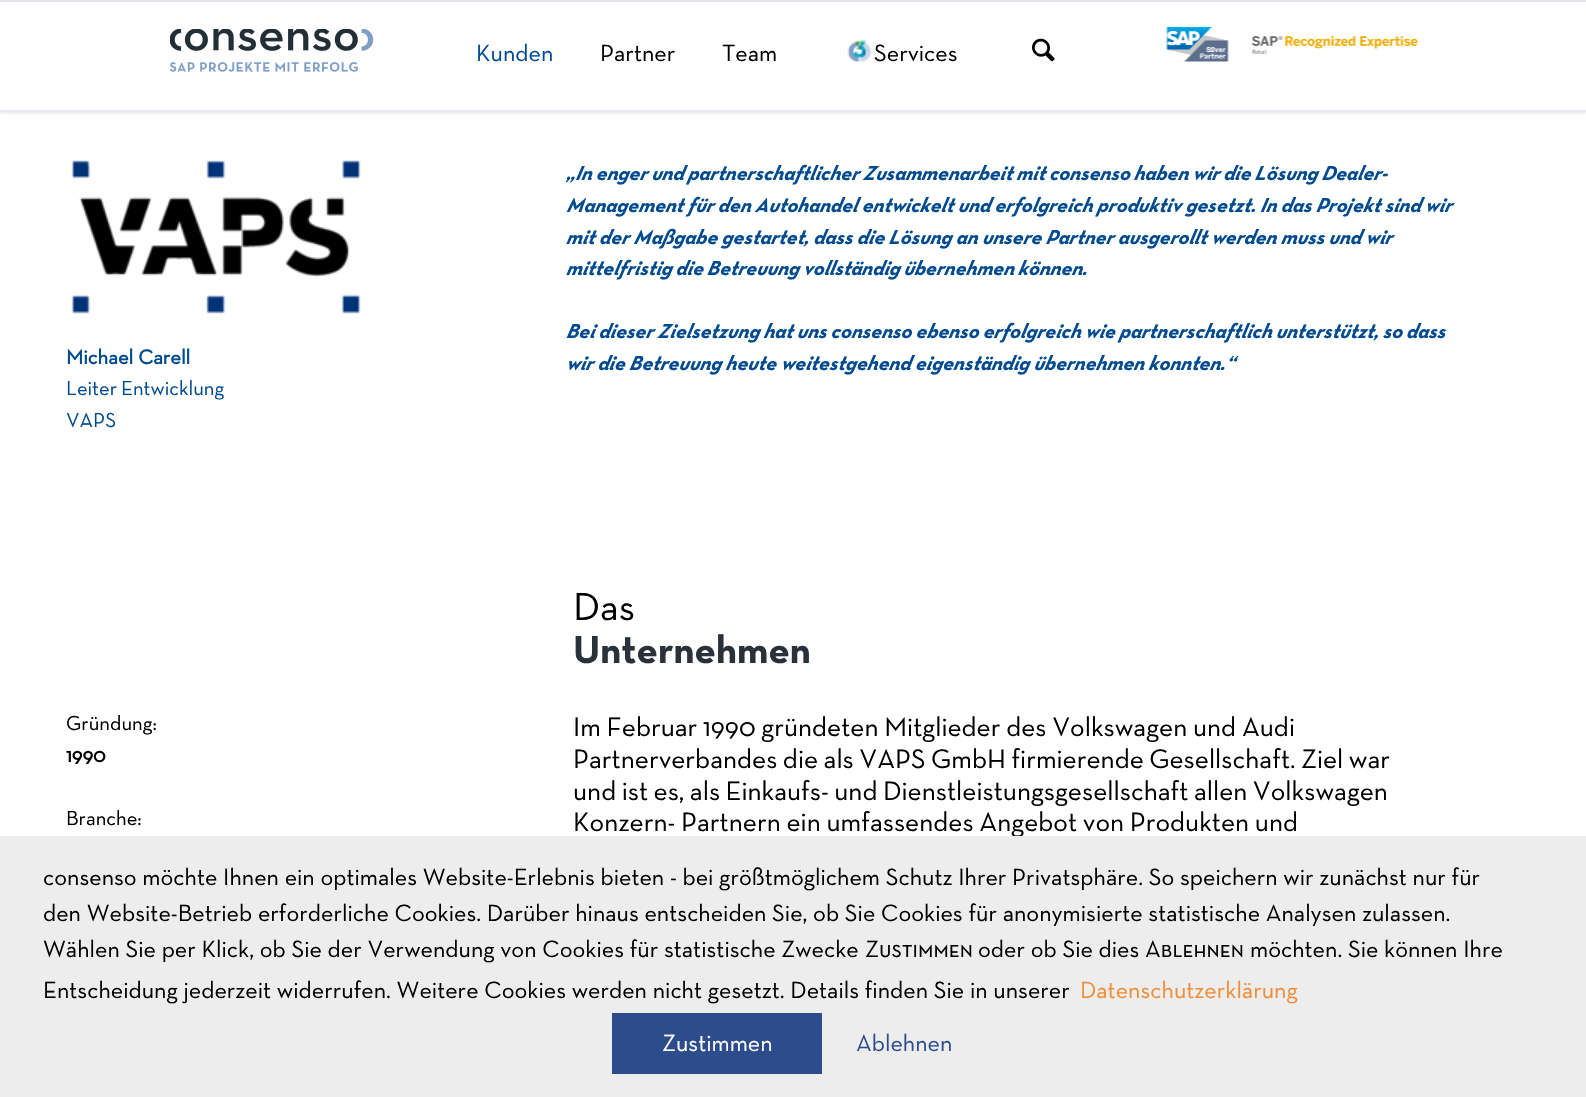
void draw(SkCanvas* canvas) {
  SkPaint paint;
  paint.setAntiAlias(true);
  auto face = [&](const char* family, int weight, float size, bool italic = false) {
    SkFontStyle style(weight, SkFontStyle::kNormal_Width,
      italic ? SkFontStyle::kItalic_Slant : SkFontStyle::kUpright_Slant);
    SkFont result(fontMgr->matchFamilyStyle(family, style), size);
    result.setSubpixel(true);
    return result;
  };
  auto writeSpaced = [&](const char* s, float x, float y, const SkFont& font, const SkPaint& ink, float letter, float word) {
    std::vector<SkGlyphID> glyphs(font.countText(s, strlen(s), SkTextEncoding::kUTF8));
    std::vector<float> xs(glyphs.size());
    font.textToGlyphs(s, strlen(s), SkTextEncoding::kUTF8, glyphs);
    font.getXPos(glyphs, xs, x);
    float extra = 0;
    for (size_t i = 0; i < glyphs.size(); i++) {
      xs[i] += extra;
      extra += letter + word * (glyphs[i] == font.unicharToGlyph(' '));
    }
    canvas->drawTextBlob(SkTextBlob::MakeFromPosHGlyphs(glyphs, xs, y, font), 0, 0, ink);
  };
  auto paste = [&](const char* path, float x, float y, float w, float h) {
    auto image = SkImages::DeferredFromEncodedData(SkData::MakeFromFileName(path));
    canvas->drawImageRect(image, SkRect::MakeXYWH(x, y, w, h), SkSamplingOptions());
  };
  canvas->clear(0xffffffff);
  paint.setColor(0xffe5e8ee);
  canvas->drawRect(SkRect::MakeXYWH(0, 0, 1586, 2), paint);
  paint.setColor(0x1a000000);
  paint.setMaskFilter(SkMaskFilter::MakeBlur(kNormal_SkBlurStyle, 1.5f));
  canvas->drawRect(SkRect::MakeXYWH(0, 3, 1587, 110), paint);
  paint.setMaskFilter(nullptr);
  paint.setColor(0xffffffff);
  canvas->drawRect(SkRect::MakeXYWH(0, 2, 1586, 108), paint);
  paint.setColor(0xffe5e8ee);
  canvas->drawRect(SkRect::MakeXYWH(0, 110, 1586, 2), paint);
  paste("img/1.png", 170, 29, 204, 43);
  paste("img/2.png", 847, 40, 25, 22);
  paste("img/3.png", 1032, 38, 23, 24);
  paste("img/4.png", 1166, 27, 252, 35);
  paste("img/5.png", 71, 160, 290, 154);
  auto f0 = face("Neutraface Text", 400, 24);
  paint.setColor(0xff004b90);
  canvas->drawString("Kunden", 476, 61, f0, paint);
  paint.setColor(0xff000000);
  {
    const struct { const char* s; float x, y; } items[] = {
      {"Partner", 600, 61},
      {"Team", 722, 61},
      {"Services", 874, 61},
    };
    for (auto [s, x, y] : items) {
      canvas->drawString(s, x, y, f0, paint);
    }
  }
  auto f1 = face("Neutraface Text", 700, 20.65f, true);
  paint.setColor(0xff004b90);
  writeSpaced("„In enger und partnerschaftlicher Zusammenarbeit mit consenso haben wir die Lösung Dealer-", 566, 180, f1, paint, 0, -0.4f);
  canvas->drawString("Management für den Autohandel entwickelt und erfolgreich produktiv gesetzt. In das Projekt sind wir", 566, 212, f1, paint);
  canvas->drawString("mit der Maßgabe gestartet, dass die Lösung an unsere Partner ausgerollt werden muss und wir", 566, 244, f1, paint);
  writeSpaced("mittelfristig die Betreuung vollständig übernehmen können.", 566, 275, f1, paint, 0, -0.5f);
  writeSpaced("Bei dieser Zielsetzung hat uns consenso ebenso erfolgreich wie partnerschaftlich unterstützt, so dass", 566, 338, f1, paint, 0, -0.25f);
  canvas->drawString("wir die Betreuung heute weitestgehend eigenständig übernehmen konnten.“", 566, 370, f1, paint);
  auto f2 = face("Neutraface Text", 700, 20.65f);
  canvas->drawString("Michael Carell", 66, 364, f2, paint);
  auto f3 = face("Neutraface Text", 400, 20.65f);
  writeSpaced("Leiter Entwicklung", 66, 395, f3, paint, 0, -1);
  canvas->drawString("VAPS", 66, 427, f3, paint);
  auto f4 = face("Neutraface Text", 400, 39.75f);
  paint.setColor(0xff000000);
  canvas->drawString("Das", 573, 620, f4, paint);
  auto f5 = face("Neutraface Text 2", 700, 39.75f);
  paint.setColor(0xff29313a);
  canvas->drawString("Unternehmen", 573, 663, f5, paint);
  paint.setColor(0xff000000);
  canvas->drawString("Gründung:", 66, 730, f3, paint);
  canvas->drawString("1990", 66, 762, f2, paint);
  canvas->drawString("Branche:", 66, 825, f3, paint);
  auto f6 = face("Neutraface Text", 400, 27.3f);
  writeSpaced("Im Februar 1990 gründeten Mitglieder des Volkswagen und Audi", 573, 736, f6, paint, 0, -0.75f);
  writeSpaced("Partnerverbandes die als VAPS GmbH firmierende Gesellschaft. Ziel war", 573, 768, f6, paint, 0, -1);
  writeSpaced("und ist es, als Einkaufs- und Dienstleistungsgesellschaft allen Volkswagen", 573, 800, f6, paint, 0, -1);
  writeSpaced("Konzern- Partnern ein umfassendes Angebot von Produkten und", 573, 831, f6, paint, 0, -0.75f);
  paint.setColor(0xffededed);
  canvas->drawRect(SkRect::MakeXYWH(0, 836, 1586, 261), paint);
  paint.setColor(0xff000000);
  {
    const struct { const char* s; float x, y; } items[] = {
      {"consenso möchte Ihnen ein optimales Website-Erlebnis bieten - bei größtmöglichem Schutz Ihrer Privatsphäre. So speichern wir zunächst nur für", 43, 885},
      {"den Website-Betrieb erforderliche Cookies. Darüber hinaus entscheiden Sie, ob Sie Cookies für anonymisierte statistische Analysen zulassen.", 43, 921},
      {"Wählen Sie per Klick, ob Sie der Verwendung von Cookies für statistische Zwecke", 43, 957},
    };
    for (auto [s, x, y] : items) {
      canvas->drawString(s, x, y, f0, paint);
    }
  }
  auto f7 = face("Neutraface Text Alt", 400, 24);
  canvas->drawString("Zustimmen", 865, 957, f7, paint);
  canvas->drawString("oder ob Sie dies", 978, 957, f0, paint);
  canvas->drawString("Ablehnen", 1145, 957, f7, paint);
  canvas->drawString("möchten. Sie können Ihre", 1250, 957, f0, paint);
  canvas->drawString("Entscheidung jederzeit widerrufen. Weitere Cookies werden nicht gesetzt. Details finden Sie in unserer", 43, 998, f0, paint);
  paint.setColor(0xfff18d37);
  canvas->drawString("Datenschutzerklärung", 1080, 998, f0, paint);
  paint.setColor(0xff2d4c8c);
  canvas->drawRect(SkRect::MakeXYWH(612, 1013, 210, 61), paint);
  paint.setColor(0xffffffff);
  canvas->drawString("Zustimmen", 662, 1051, f0, paint);
  paint.setColor(0xff2d4c8c);
  canvas->drawString("Ablehnen", 856, 1051, f0, paint);
}
